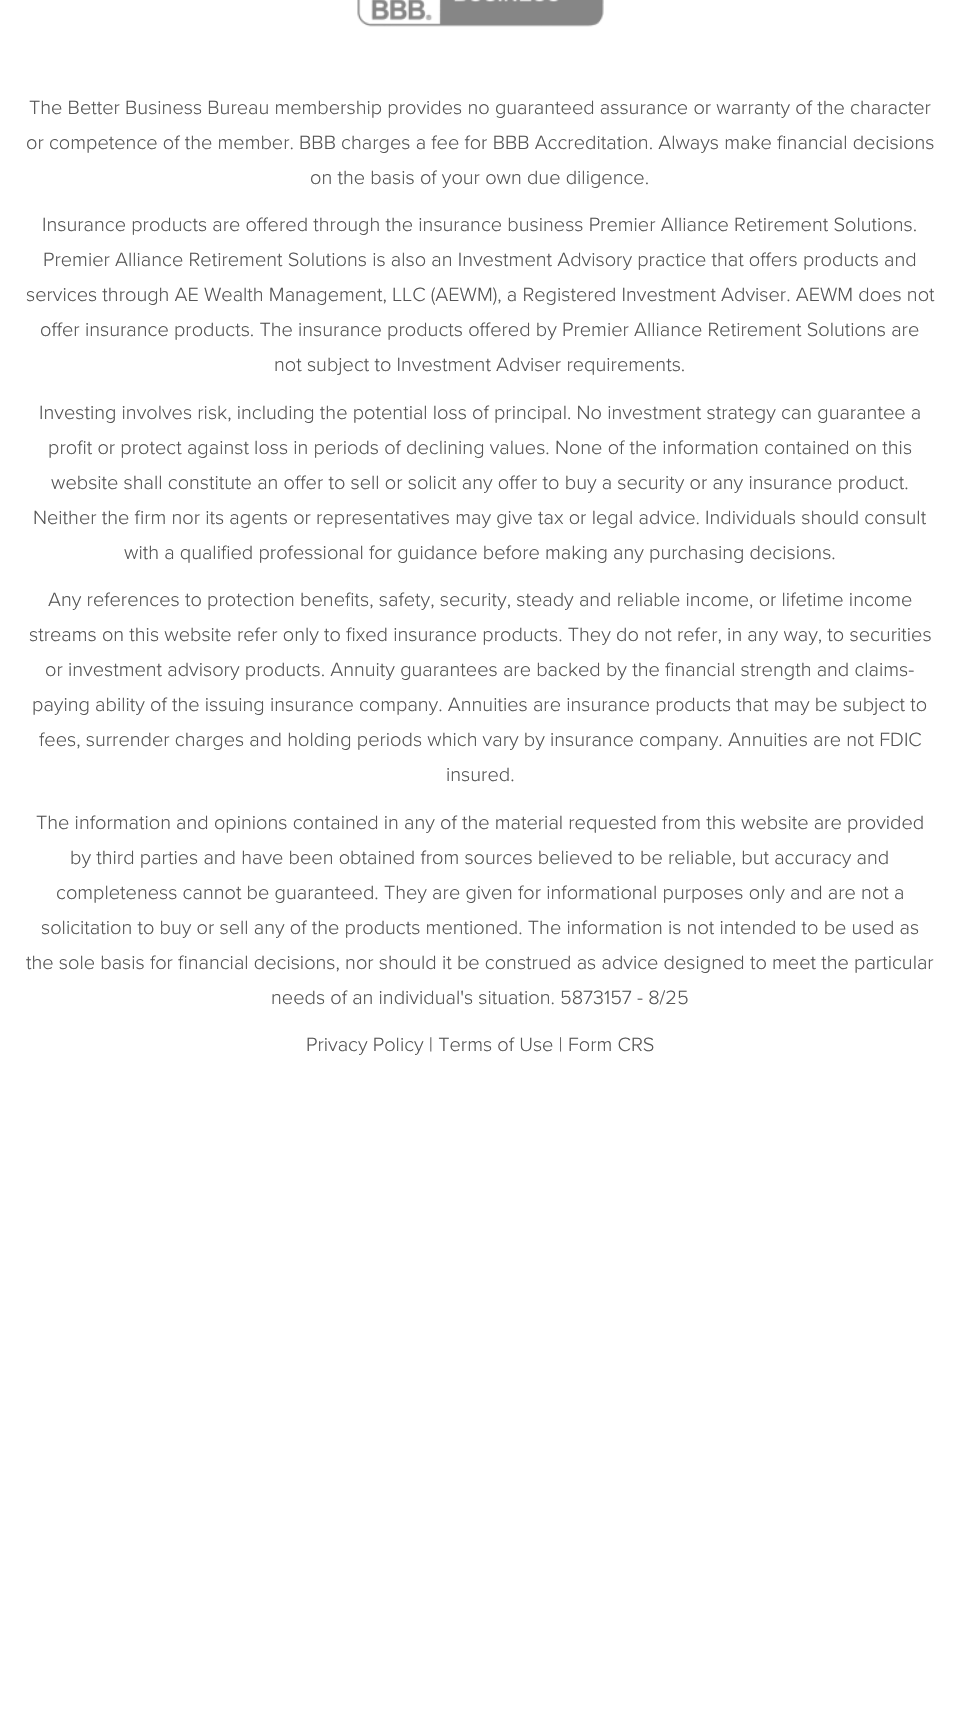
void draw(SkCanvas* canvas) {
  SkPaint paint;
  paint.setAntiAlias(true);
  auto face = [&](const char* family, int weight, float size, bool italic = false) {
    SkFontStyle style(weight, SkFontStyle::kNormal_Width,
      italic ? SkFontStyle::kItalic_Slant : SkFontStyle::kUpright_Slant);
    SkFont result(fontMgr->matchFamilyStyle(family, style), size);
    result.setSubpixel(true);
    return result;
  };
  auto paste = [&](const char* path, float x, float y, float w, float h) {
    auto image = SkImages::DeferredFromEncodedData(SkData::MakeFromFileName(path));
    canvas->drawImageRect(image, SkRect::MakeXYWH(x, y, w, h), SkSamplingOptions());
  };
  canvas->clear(0xffffffff);
  paste("img/1.png", 357, 0, 247, 27);
  auto f0 = face("Proxima Nova", 300, 20);
  paint.setColor(0xff555555);
  {
    const struct { const char* s; float x, y; } items[] = {
      {"The Better Business Bureau membership provides no guaranteed assurance or warranty of the character", 29, 114},
      {"or competence of the member. BBB charges a fee for BBB Accreditation. Always make financial decisions", 26, 149},
      {"on the basis of your own due diligence.", 310, 184},
      {"Insurance products are offered through the insurance business Premier Alliance Retirement Solutions.", 42, 231},
      {"Premier Alliance Retirement Solutions is also an Investment Advisory practice that offers products and", 43, 266},
      {"services through AE Wealth Management, LLC (AEWM), a Registered Investment Adviser. AEWM does not", 26, 301},
      {"offer insurance products. The insurance products offered by Premier Alliance Retirement Solutions are", 40, 336},
      {"not subject to Investment Adviser requirements.", 274, 371},
      {"Investing involves risk, including the potential loss of principal. No investment strategy can guarantee a", 39, 419},
      {"profit or protect against loss in periods of declining values. None of the information contained on this", 48, 454},
      {"website shall constitute an offer to sell or solicit any offer to buy a security or any insurance product.", 51, 489},
      {"Neither the firm nor its agents or representatives may give tax or legal advice. Individuals should consult", 33, 524},
      {"with a qualified professional for guidance before making any purchasing decisions.", 124, 559},
      {"Any references to protection benefits, safety, security, steady and reliable income, or lifetime income", 48, 606},
      {"streams on this website refer only to fixed insurance products. They do not refer, in any way, to securities", 29, 641},
      {"or investment advisory products. Annuity guarantees are backed by the financial strength and claims-", 45, 676},
      {"paying ability of the issuing insurance company. Annuities are insurance products that may be subject to", 32, 711},
      {"fees, surrender charges and holding periods which vary by insurance company. Annuities are not FDIC", 39, 746},
      {"insured.", 446, 781},
      {"The information and opinions contained in any of the material requested from this website are provided", 36, 829},
      {"by third parties and have been obtained from sources believed to be reliable, but accuracy and", 70, 864},
      {"completeness cannot be guaranteed. They are given for informational purposes only and are not a", 56, 899},
      {"solicitation to buy or sell any of the products mentioned. The information is not intended to be used as", 41, 934},
      {"the sole basis for financial decisions, nor should it be construed as advice designed to meet the particular", 26, 969},
      {"needs of an individual's situation. 5873157 - 8/25", 271, 1004},
      {"Privacy Policy | Terms of Use | Form CRS", 306, 1051},
    };
    for (auto [s, x, y] : items) {
      canvas->drawString(s, x, y, f0, paint);
    }
  }
}
